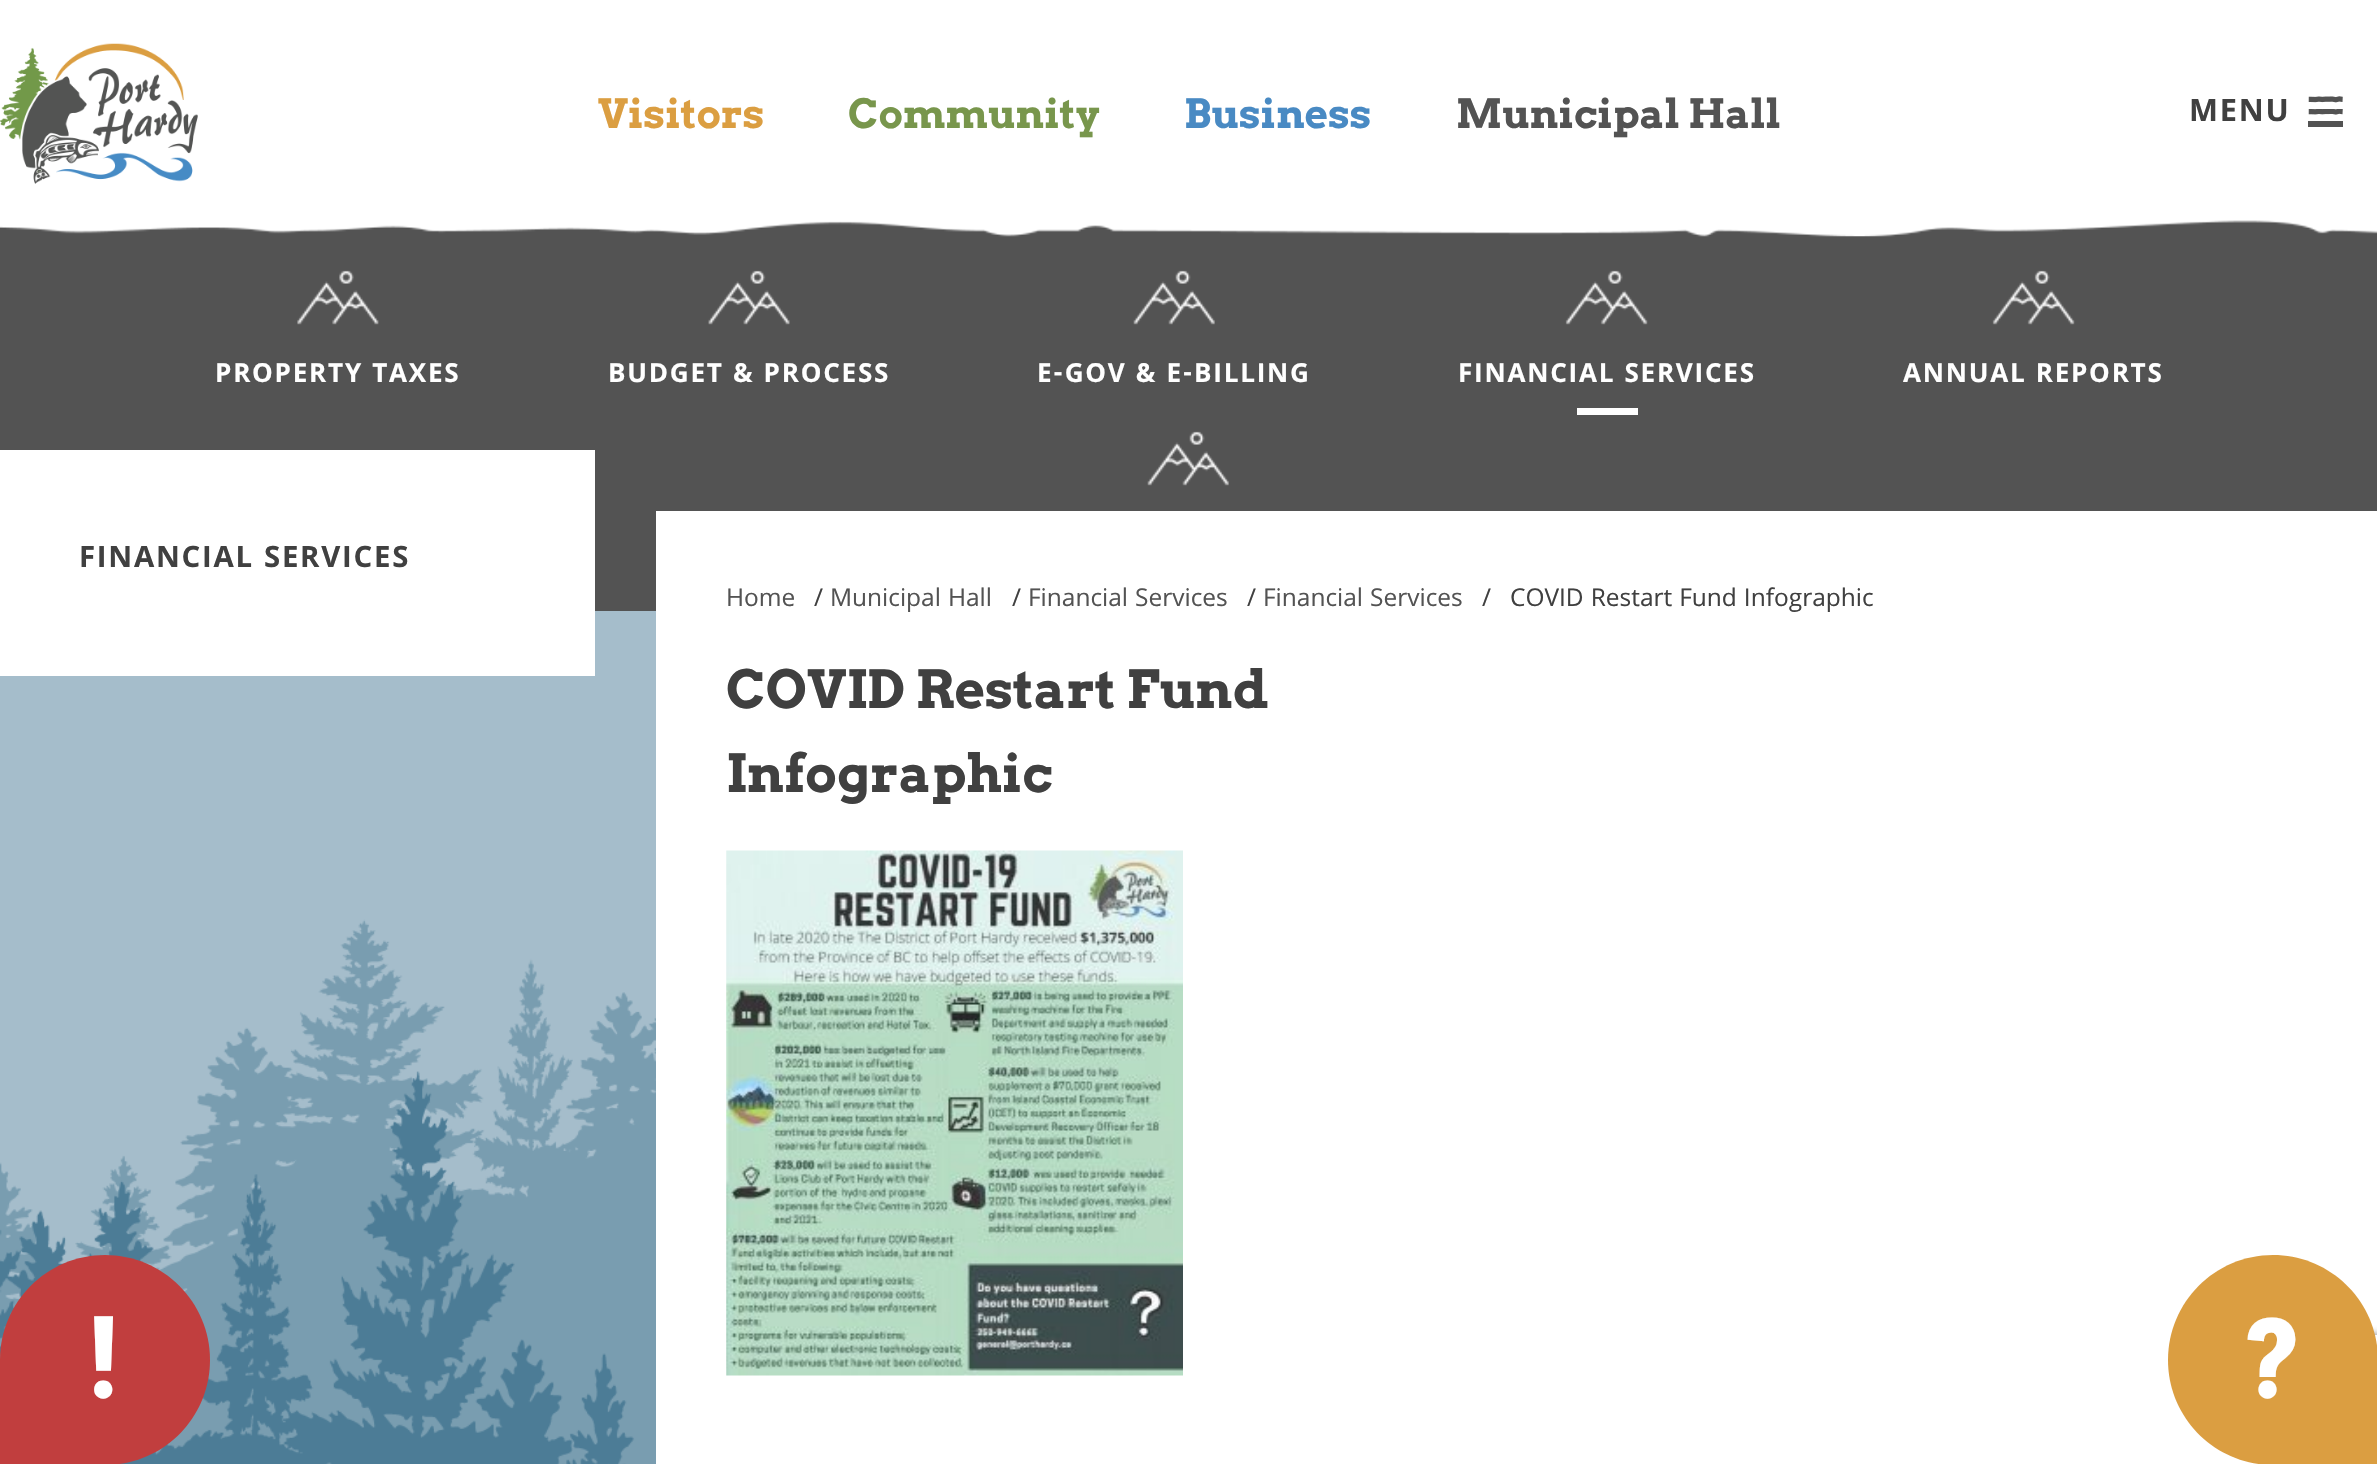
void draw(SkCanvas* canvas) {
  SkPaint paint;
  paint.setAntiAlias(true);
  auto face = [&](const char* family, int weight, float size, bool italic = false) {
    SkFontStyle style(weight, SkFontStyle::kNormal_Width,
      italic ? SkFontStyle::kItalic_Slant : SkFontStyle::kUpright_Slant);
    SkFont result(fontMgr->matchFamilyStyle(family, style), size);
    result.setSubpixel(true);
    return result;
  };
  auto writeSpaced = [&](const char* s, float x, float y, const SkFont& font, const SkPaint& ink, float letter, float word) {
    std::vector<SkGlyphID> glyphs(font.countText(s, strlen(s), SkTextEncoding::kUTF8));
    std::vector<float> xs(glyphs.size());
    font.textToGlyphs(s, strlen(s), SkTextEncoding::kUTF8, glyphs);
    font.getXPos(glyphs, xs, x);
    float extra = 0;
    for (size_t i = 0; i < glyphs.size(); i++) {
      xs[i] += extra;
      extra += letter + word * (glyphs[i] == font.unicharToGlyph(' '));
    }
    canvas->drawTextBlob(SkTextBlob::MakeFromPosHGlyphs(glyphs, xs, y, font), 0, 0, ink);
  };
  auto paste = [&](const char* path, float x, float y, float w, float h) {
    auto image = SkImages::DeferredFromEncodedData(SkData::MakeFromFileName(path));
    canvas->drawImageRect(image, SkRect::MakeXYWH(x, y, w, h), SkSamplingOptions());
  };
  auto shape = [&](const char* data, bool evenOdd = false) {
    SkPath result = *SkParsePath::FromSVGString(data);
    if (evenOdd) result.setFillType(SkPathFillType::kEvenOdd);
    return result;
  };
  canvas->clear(0xffffffff);
  paint.setColor(0xff535353);
  canvas->drawRect(SkRect::MakeXYWH(0, 220, 2377, 391), paint);
  paste("img/5.png", 0, 218, 2377, 19);
  paste("img/1.png", 0, 200, 2377, 35);
  paste("img/2.png", 0, 43, 198, 141);
  paste("img/3.png", 2308, 96, 35, 7);
  paste("img/4.png", 2308, 109, 35, 6);
  canvas->drawRect(SkRect::MakeXYWH(2308, 121, 35, 6), paint);
  paste("img/6.png", 297, 270, 82, 55);
  paste("img/7.png", 708, 270, 82, 55);
  paste("img/8.png", 1133, 270, 82, 55);
  paste("img/9.png", 1565, 270, 83, 55);
  paint.setColor(0xffffffff);
  canvas->drawRect(SkRect::MakeXYWH(1577, 408, 61, 7), paint);
  paste("img/10.png", 1992, 270, 83, 55);
  paste("img/8.png", 1147, 431, 82, 55);
  paste("img/12.png", 0, 611, 656, 705);
  canvas->drawRect(SkRect::MakeXYWH(0, 450, 595, 226), paint);
  canvas->drawRect(SkRect::MakeXYWH(656, 511, 1721, 100), paint);
  paste("img/11.png", 726, 850, 457, 526);
  canvas->save();
  canvas->clipPath(shape("M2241 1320H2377V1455H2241ZM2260 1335H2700C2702 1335 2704 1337 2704 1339V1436C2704 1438 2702 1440 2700 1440H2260C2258 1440 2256 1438 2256 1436V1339C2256 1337 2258 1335 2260 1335Z", true), true);
  paint.setColor(0xff808080);
  paint.setMaskFilter(SkMaskFilter::MakeBlur(kNormal_SkBlurStyle, 4.5f));
  canvas->drawRoundRect(SkRect::MakeXYWH(2256, 1335, 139, 105), 4, 4, paint);
  paint.setMaskFilter(nullptr);
  canvas->restore();
  paint.setColor(0xffdb9e41);
  canvas->drawPath(shape("M2273 1255C2331 1255 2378 1302 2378 1360V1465H2273C2215 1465 2168 1418 2168 1360C2168 1302 2215 1255 2273 1255Z"), paint);
  paste("img/13.png", 0, 919, 656, 545);
  paste("img/14.png", 0, 1071, 635, 393);
  paint.setColor(0xffc13e3e);
  canvas->drawPath(shape("M105 1255C163 1255 210 1302 210 1360C210 1418 163 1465 105 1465H0V1360C0 1302 47 1255 105 1255Z"), paint);
  auto f0 = face("Arvo", 700, 40.25f);
  paint.setColor(0xffdb9e41);
  canvas->drawString("Visitors", 598, 128, f0, paint);
  paint.setColor(0xff78964c);
  canvas->drawString("Community", 848, 128, f0, paint);
  paint.setColor(0xff498ac3);
  canvas->drawString("Business", 1184, 128, f0, paint);
  paint.setColor(0xff535353);
  canvas->drawString("Municipal Hall", 1456, 128, f0, paint);
  auto f1 = face("Khula", 700, 33);
  paint.setColor(0xff404040);
  writeSpaced("MENU", 2189, 121, f1, paint, 1.75f, 0);
  auto f2 = face("Khula", 700, 28);
  paint.setColor(0xffffffff);
  {
    const struct { const char* s; float x, y; } items[] = {
      {"PROPERTY TAXES", 215, 382},
      {"BUDGET & PROCESS", 608, 382},
      {"E-GOV & E-BILLING", 1037, 382},
      {"FINANCIAL SERVICES", 1458, 382},
      {"ANNUAL REPORTS", 1903, 382},
    };
    for (auto [s, x, y] : items) {
      writeSpaced(s, x, y, f2, paint, 1.75f, 0);
    }
  }
  auto f3 = face("Khula", 700, 31.5f);
  paint.setColor(0xff404040);
  writeSpaced("FINANCIAL SERVICES", 79, 567, f3, paint, 1.75f, 0);
  auto f4 = face("Khula", 400, 26.25f);
  paint.setColor(0xff535353);
  canvas->drawString("Home", 726, 606, f4, paint);
  paint.setColor(0xff404040);
  canvas->drawString("/", 814, 606, f4, paint);
  paint.setColor(0xff535353);
  canvas->drawString("Municipal Hall", 830, 606, f4, paint);
  paint.setColor(0xff404040);
  canvas->drawString("/", 1012, 606, f4, paint);
  paint.setColor(0xff535353);
  canvas->drawString("Financial Services", 1028, 606, f4, paint);
  paint.setColor(0xff404040);
  canvas->drawString("/", 1247, 606, f4, paint);
  paint.setColor(0xff535353);
  canvas->drawString("Financial Services", 1263, 606, f4, paint);
  paint.setColor(0xff404040);
  canvas->drawString("/", 1482, 606, f4, paint);
  canvas->drawString("COVID Restart Fund Infographic", 1510, 606, f4, paint);
  auto f5 = face("Arvo", 700, 52.5f);
  canvas->drawString("COVID Restart Fund", 726, 708, f5, paint);
  canvas->drawString("Infographic", 726, 792, f5, paint);
  auto f6 = face("Arvo", 700, 105);
  paint.setColor(0xffffffff);
  canvas->drawString("?", 2243, 1397, f6, paint);
  canvas->drawString("!", 87, 1397, f6, paint);
}
